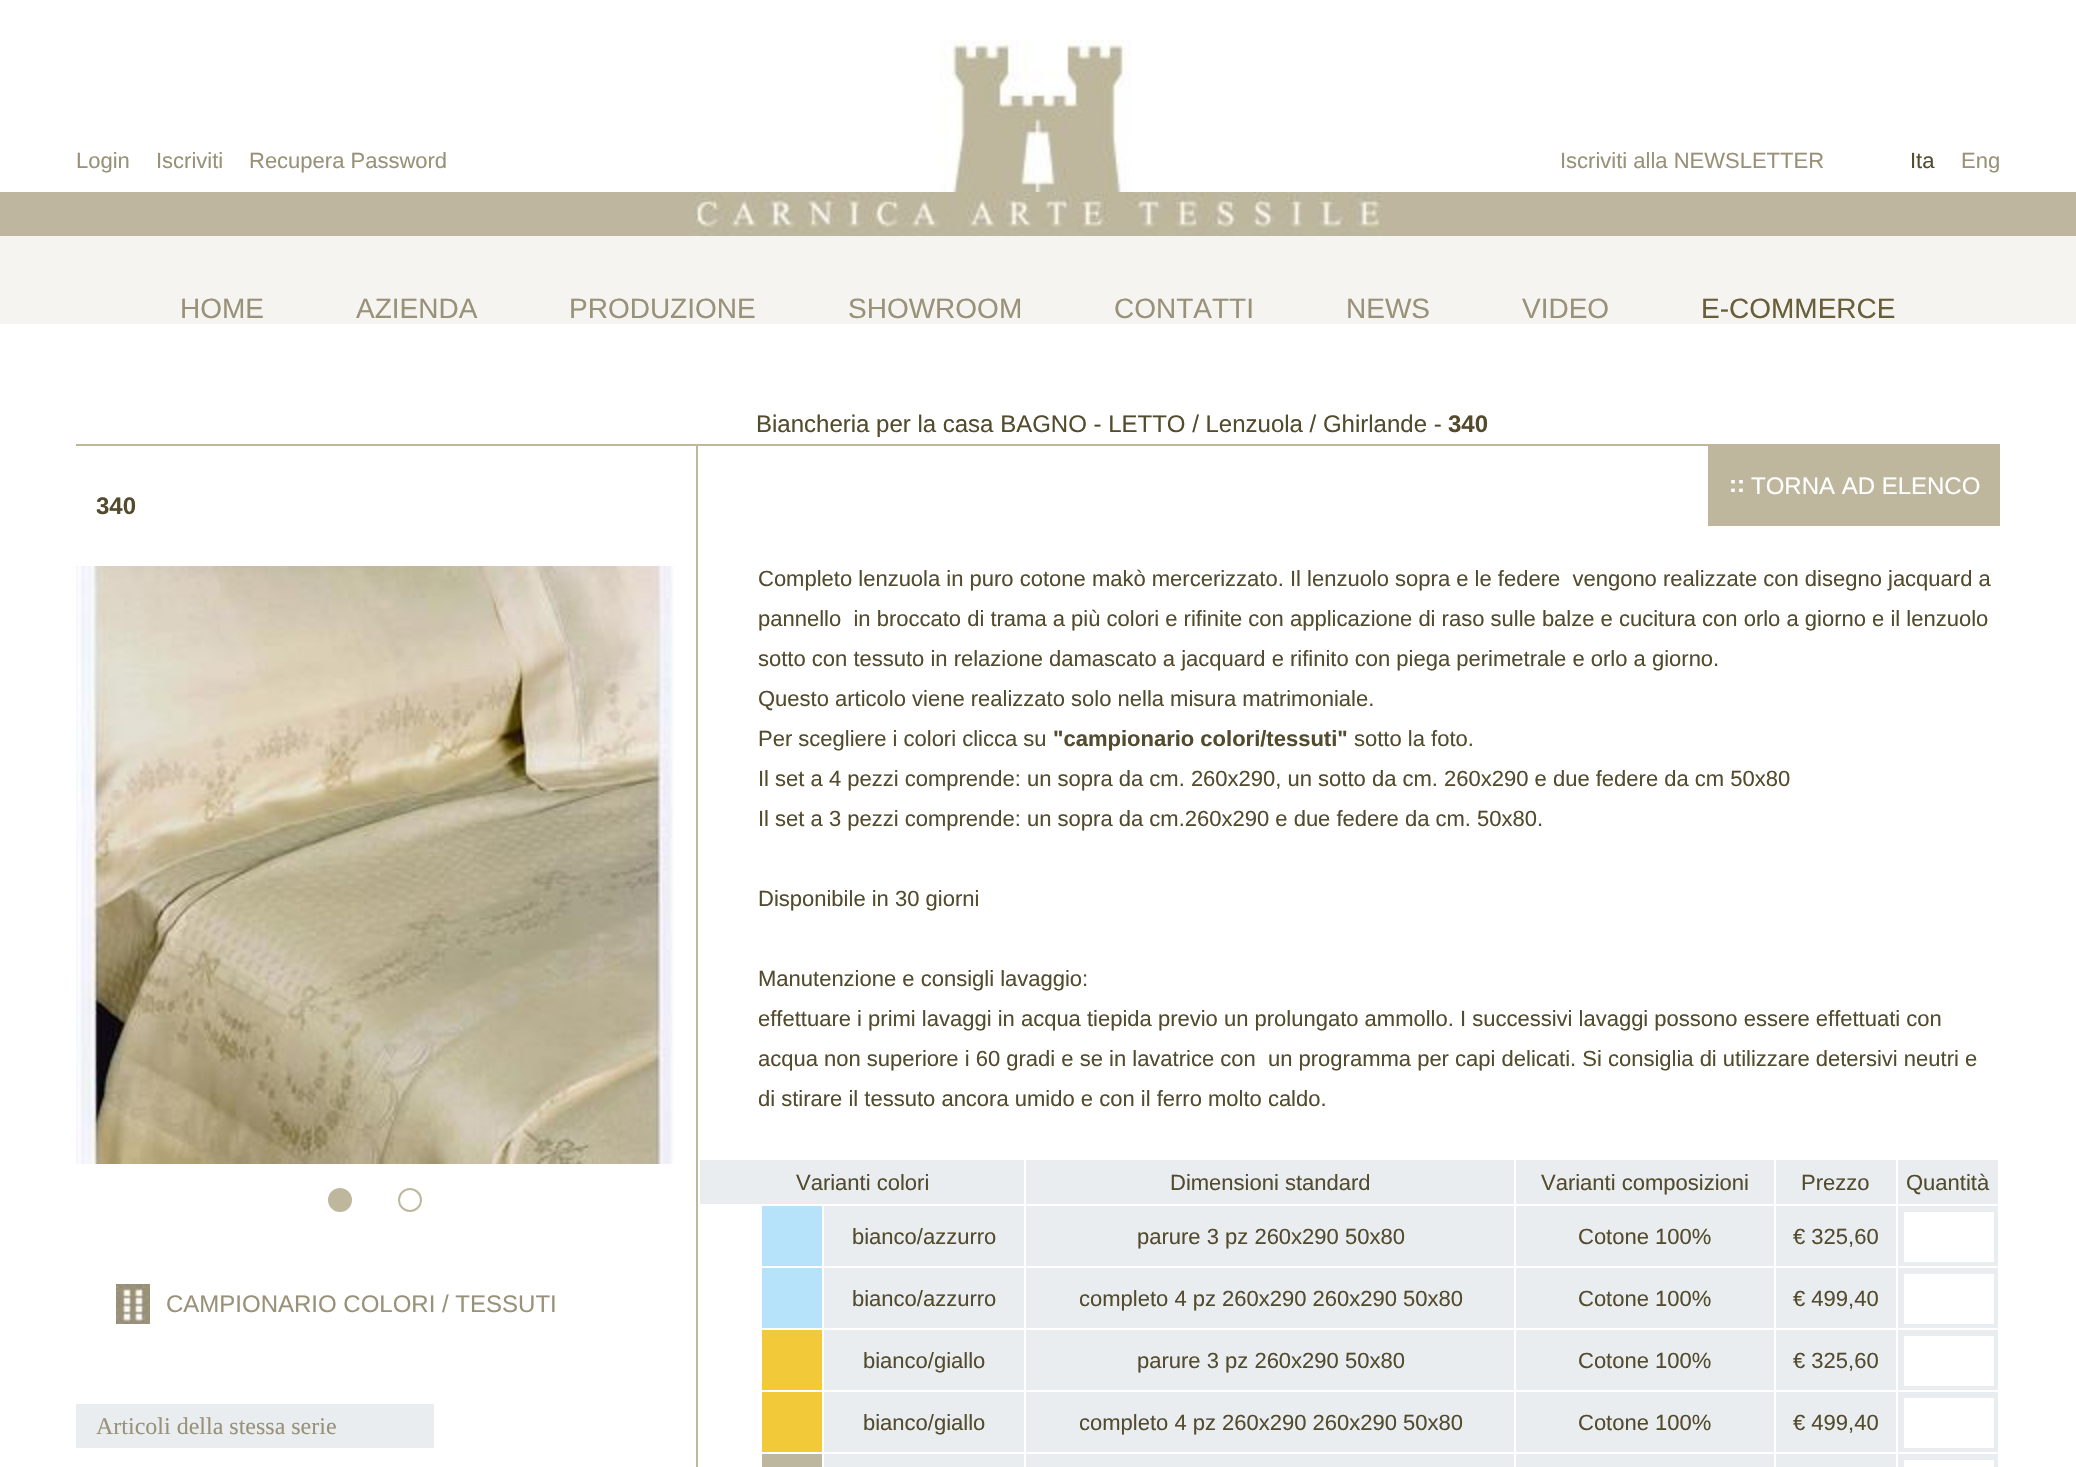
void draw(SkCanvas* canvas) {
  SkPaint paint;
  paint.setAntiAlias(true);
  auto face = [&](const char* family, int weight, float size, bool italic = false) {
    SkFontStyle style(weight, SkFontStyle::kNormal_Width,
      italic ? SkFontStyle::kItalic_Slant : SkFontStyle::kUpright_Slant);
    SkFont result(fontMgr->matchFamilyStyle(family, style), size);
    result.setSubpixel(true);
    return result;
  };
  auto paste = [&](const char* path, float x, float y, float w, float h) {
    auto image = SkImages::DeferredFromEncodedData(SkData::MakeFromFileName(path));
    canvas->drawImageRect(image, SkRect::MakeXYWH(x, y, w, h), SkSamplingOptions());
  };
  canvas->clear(0xffffffff);
  paste("img/1.png", 940, 40, 191, 152);
  paint.setColor(0xffbeb69f);
  canvas->drawRect(SkRect::MakeXYWH(0, 192, 2076, 44), paint);
  paste("img/2.png", 694, 192, 688, 44);
  {
    const struct { float x, y, w, h; SkColor color; } items[] = {
      {0, 236, 2076, 88, 0xfff5f4f0},
      {76, 444, 1924, 2, 0xffbeb79d},
      {696, 444, 2, 1023, 0xffbeb79d},
    };
    for (auto [x, y, w, h, color] : items) {
      paint.setColor(color);
      canvas->drawRect(SkRect::MakeXYWH(x, y, w, h), paint);
    }
  }
  paste("img/3.png", 76, 566, 598, 598);
  canvas->drawCircle(340, 1200, 11, paint);
  paint.setStroke(true);
  paint.setStrokeWidth(2);
  canvas->drawCircle(340, 1200, 11, paint);
  canvas->drawCircle(410, 1200, 11, paint);
  paste("img/4.png", 116, 1284, 34, 40);
  paint.setStroke(false);
  {
    const struct { float x, y, w, h; SkColor color; } items[] = {
      {76, 1404, 358, 44, 0xffe9edf0},
      {1708, 446, 292, 80, 0xffbeb79d},
      {700, 1160, 1298, 307, 0xffe9edf0},
      {1896, 1204, 104, 2, 0xffffffff},
      {1896, 1266, 104, 2, 0xffffffff},
      {1896, 1328, 104, 2, 0xffffffff},
      {1896, 1390, 104, 2, 0xffffffff},
      {1896, 1452, 104, 2, 0xffffffff},
      {1896, 1452, 2, 15, 0xffffffff},
      {1774, 1452, 124, 2, 0xffffffff},
      {1896, 1390, 2, 64, 0xffffffff},
      {1774, 1390, 124, 2, 0xffffffff},
      {1896, 1328, 2, 64, 0xffffffff},
      {1774, 1328, 124, 2, 0xffffffff},
      {1896, 1266, 2, 64, 0xffffffff},
      {1774, 1266, 124, 2, 0xffffffff},
      {1896, 1204, 2, 64, 0xffffffff},
      {1774, 1204, 124, 2, 0xffffffff},
      {1774, 1452, 2, 15, 0xffffffff},
      {1514, 1452, 262, 2, 0xffffffff},
      {1774, 1390, 2, 64, 0xffffffff},
      {1514, 1390, 262, 2, 0xffffffff},
      {1774, 1328, 2, 64, 0xffffffff},
      {1514, 1328, 262, 2, 0xffffffff},
      {1774, 1266, 2, 64, 0xffffffff},
      {1514, 1266, 262, 2, 0xffffffff},
      {1774, 1204, 2, 64, 0xffffffff},
      {1514, 1204, 262, 2, 0xffffffff},
      {1514, 1452, 2, 15, 0xffffffff},
      {1024, 1452, 492, 2, 0xffffffff},
      {1514, 1390, 2, 64, 0xffffffff},
      {1024, 1390, 492, 2, 0xffffffff},
      {1514, 1328, 2, 64, 0xffffffff},
      {1024, 1328, 492, 2, 0xffffffff},
      {1514, 1266, 2, 64, 0xffffffff},
      {1024, 1266, 492, 2, 0xffffffff},
      {1514, 1204, 2, 64, 0xffffffff},
      {1024, 1204, 492, 2, 0xffffffff},
      {1024, 1452, 2, 15, 0xffffffff},
      {822, 1452, 204, 2, 0xffffffff},
      {1024, 1390, 2, 64, 0xffffffff},
      {822, 1390, 204, 2, 0xffffffff},
      {1024, 1328, 2, 64, 0xffffffff},
      {822, 1328, 204, 2, 0xffffffff},
      {1024, 1266, 2, 64, 0xffffffff},
      {822, 1266, 204, 2, 0xffffffff},
      {1024, 1204, 2, 64, 0xffffffff},
      {822, 1204, 204, 2, 0xffffffff},
      {1024, 1158, 2, 48, 0xffffffff},
      {1514, 1158, 2, 48, 0xffffffff},
      {1774, 1158, 2, 48, 0xffffffff},
      {1896, 1158, 2, 48, 0xffffffff},
      {822, 1452, 2, 15, 0xffffffff},
      {698, 1452, 126, 2, 0xffffffff},
      {822, 1390, 2, 64, 0xffffffff},
      {698, 1390, 126, 2, 0xffffffff},
      {822, 1328, 2, 64, 0xffffffff},
      {698, 1328, 126, 2, 0xffffffff},
      {822, 1266, 2, 64, 0xffffffff},
      {698, 1266, 126, 2, 0xffffffff},
      {822, 1204, 2, 64, 0xffffffff},
      {698, 1204, 126, 2, 0xffffffff},
      {700, 1206, 62, 60, 0xffffffff},
      {762, 1206, 60, 60, 0xffb6e3fa},
      {1904, 1212, 90, 50, 0xffffffff},
      {700, 1268, 62, 60, 0xffffffff},
      {762, 1268, 60, 60, 0xffb6e3fa},
      {1904, 1274, 90, 50, 0xffffffff},
      {700, 1330, 62, 60, 0xffffffff},
      {762, 1330, 60, 60, 0xfff2c939},
      {1904, 1336, 90, 50, 0xffffffff},
      {700, 1392, 62, 60, 0xffffffff},
      {762, 1392, 60, 60, 0xfff2c939},
      {1904, 1398, 90, 50, 0xffffffff},
      {700, 1454, 62, 13, 0xffffffff},
      {762, 1454, 60, 13, 0xffbdb79f},
      {1904, 1460, 90, 7, 0xffffffff},
    };
    for (auto [x, y, w, h, color] : items) {
      paint.setColor(color);
      canvas->drawRect(SkRect::MakeXYWH(x, y, w, h), paint);
    }
  }
  auto f0 = face("Liberation Sans", 400, 22);
  paint.setColor(0xff999279);
  {
    const struct { const char* s; float x, y; } items[] = {
      {"Login", 76, 168},
      {"Iscriviti", 156, 168},
      {"Recupera Password", 249, 168},
      {"Iscriviti alla NEWSLETTER", 1560, 168},
    };
    for (auto [s, x, y] : items) {
      canvas->drawString(s, x, y, f0, paint);
    }
  }
  paint.setColor(0xff534b2d);
  canvas->drawString("Ita", 1910, 168, f0, paint);
  paint.setColor(0xff999279);
  canvas->drawString("Eng", 1961, 168, f0, paint);
  auto f1 = face("Liberation Sans", 400, 28);
  {
    const struct { const char* s; float x, y; } items[] = {
      {"HOME", 180, 318},
      {"AZIENDA", 356, 318},
      {"PRODUZIONE", 569, 318},
      {"SHOWROOM", 848, 318},
      {"CONTATTI", 1114, 318},
      {"NEWS", 1346, 318},
      {"VIDEO", 1522, 318},
    };
    for (auto [s, x, y] : items) {
      canvas->drawString(s, x, y, f1, paint);
    }
  }
  paint.setColor(0xff685e39);
  canvas->drawString("E-COMMERCE", 1701, 318, f1, paint);
  auto f2 = face("Liberation Sans", 400, 24);
  paint.setColor(0xff534b2d);
  canvas->drawString("Biancheria per la casa BAGNO - LETTO / Lenzuola / Ghirlande -", 756, 432, f2, paint);
  auto f3 = face("Liberation Sans", 700, 24);
  canvas->drawString("340", 1448, 432, f3, paint);
  canvas->drawString("340", 96, 514, f3, paint);
  paint.setColor(0xff999279);
  canvas->drawString("CAMPIONARIO COLORI / TESSUTI", 166, 1312, f2, paint);
  auto f4 = face("Liberation Serif", 400, 24);
  canvas->drawString("Articoli della stessa serie", 96, 1434, f4, paint);
  paint.setColor(0xffffffff);
  canvas->drawString("::", 1729, 492, f3, paint);
  canvas->drawString("TORNA AD ELENCO", 1751, 494, f2, paint);
  paint.setColor(0xff534b2d);
  {
    const struct { const char* s; float x, y; } items[] = {
      {"Completo lenzuola in puro cotone makò mercerizzato. Il lenzuolo sopra e le federe  vengono realizzate con disegno jacquard a", 758, 586},
      {"pannello  in broccato di trama a più colori e rifinite con applicazione di raso sulle balze e cucitura con orlo a giorno e il lenzuolo", 758, 626},
      {"sotto con tessuto in relazione damascato a jacquard e rifinito con piega perimetrale e orlo a giorno.", 758, 666},
      {"Questo articolo viene realizzato solo nella misura matrimoniale.", 758, 706},
      {"Per scegliere i colori clicca su", 758, 746},
    };
    for (auto [s, x, y] : items) {
      canvas->drawString(s, x, y, f0, paint);
    }
  }
  auto f5 = face("Liberation Sans", 700, 22);
  canvas->drawString("\"campionario colori/tessuti\"", 1053, 746, f5, paint);
  {
    const struct { const char* s; float x, y; } items[] = {
      {"sotto la foto.", 1354, 746},
      {"Il set a 4 pezzi comprende: un sopra da cm. 260x290, un sotto da cm. 260x290 e due federe da cm 50x80", 758, 786},
      {"Il set a 3 pezzi comprende: un sopra da cm.260x290 e due federe da cm. 50x80.", 758, 826},
      {"Disponibile in 30 giorni", 758, 906},
      {"Manutenzione e consigli lavaggio:", 758, 986},
      {"effettuare i primi lavaggi in acqua tiepida previo un prolungato ammollo. I successivi lavaggi possono essere effettuati con", 758, 1026},
      {"acqua non superiore i 60 gradi e se in lavatrice con  un programma per capi delicati. Si consiglia di utilizzare detersivi neutri e", 758, 1066},
      {"di stirare il tessuto ancora umido e con il ferro molto caldo.", 758, 1106},
      {"Varianti colori", 796, 1190},
      {"Dimensioni standard", 1170, 1190},
      {"Varianti composizioni", 1541, 1190},
      {"Prezzo", 1801, 1190},
      {"Quantità", 1906, 1190},
      {"bianco/azzurro", 852, 1244},
      {"parure 3 pz 260x290 50x80", 1137, 1244},
      {"Cotone 100%", 1578, 1244},
      {"€ 325,60", 1793, 1244},
      {"bianco/azzurro", 852, 1306},
      {"completo 4 pz 260x290 260x290 50x80", 1079, 1306},
      {"Cotone 100%", 1578, 1306},
      {"€ 499,40", 1793, 1306},
      {"bianco/giallo", 863, 1368},
      {"parure 3 pz 260x290 50x80", 1137, 1368},
      {"Cotone 100%", 1578, 1368},
      {"€ 325,60", 1793, 1368},
      {"bianco/giallo", 863, 1430},
      {"completo 4 pz 260x290 260x290 50x80", 1079, 1430},
      {"Cotone 100%", 1578, 1430},
      {"€ 499,40", 1793, 1430},
    };
    for (auto [s, x, y] : items) {
      canvas->drawString(s, x, y, f0, paint);
    }
  }
}
